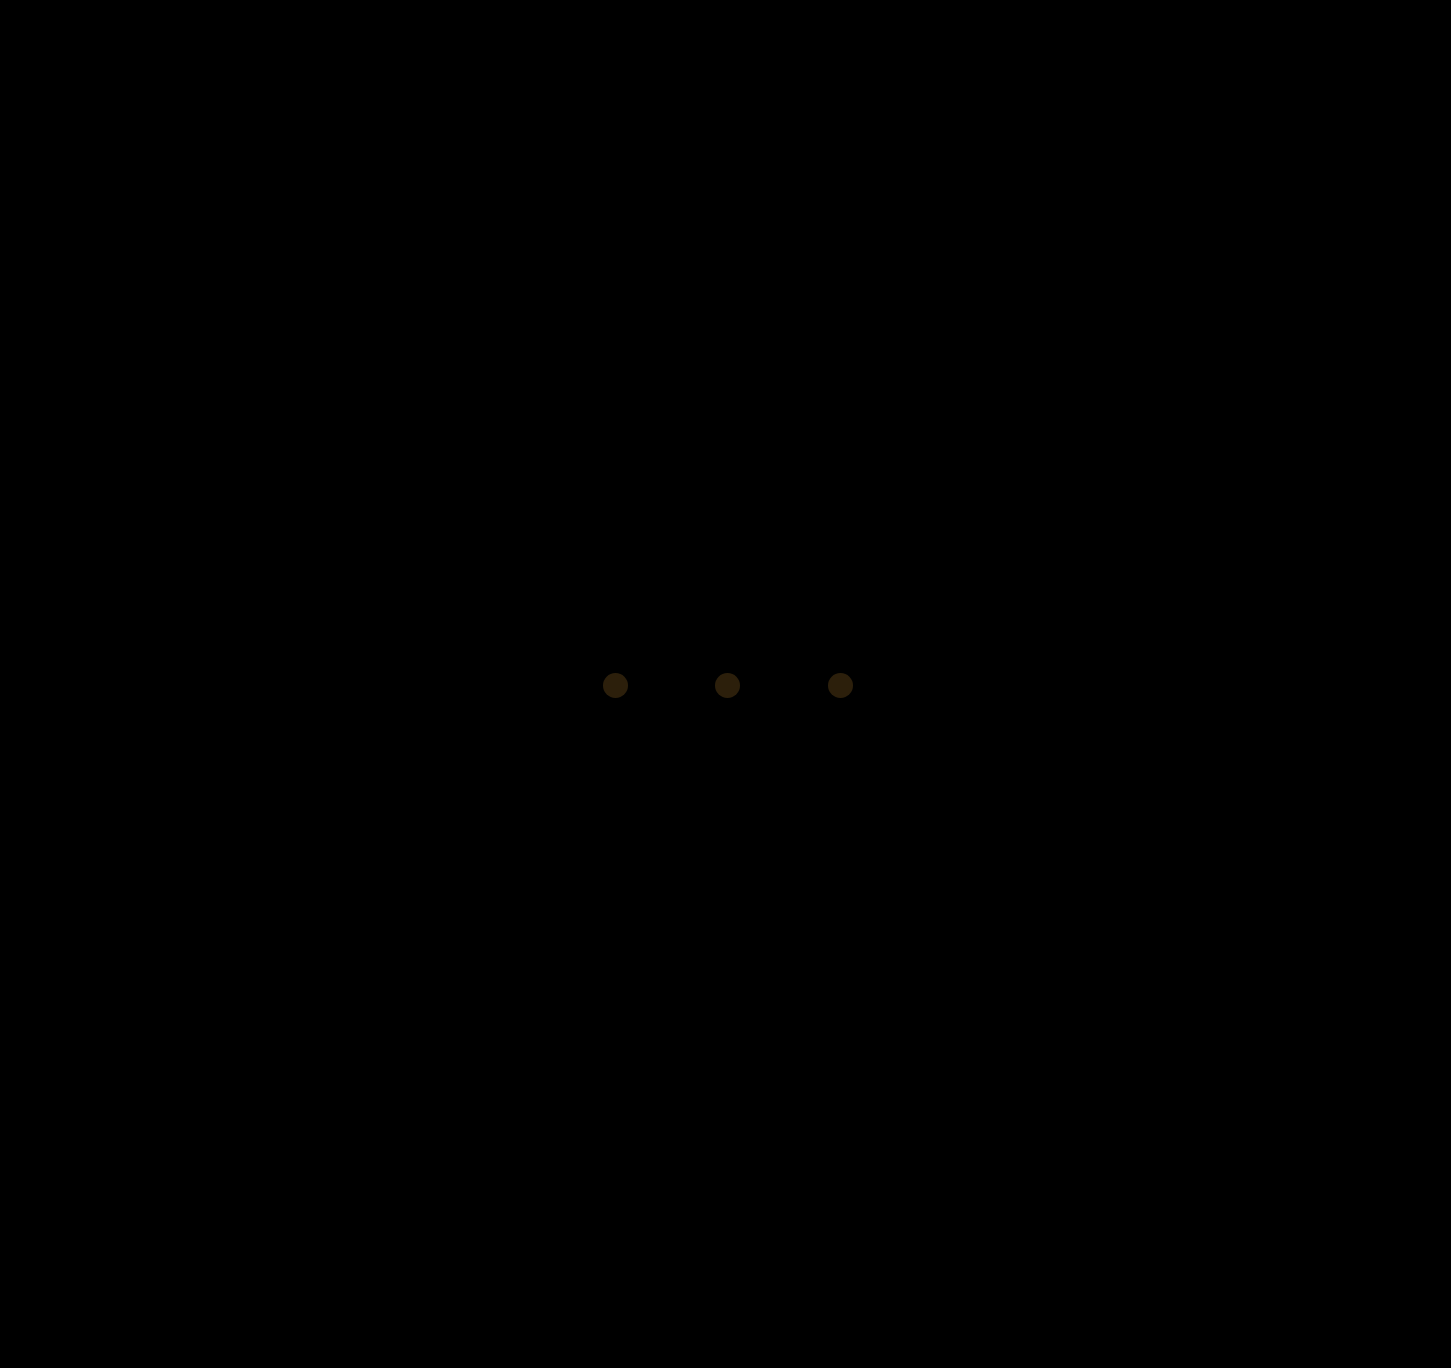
void draw(SkCanvas* canvas) {
  SkPaint paint;
  paint.setAntiAlias(true);
  canvas->clear(0xff000000);
  paint.setColor(0xff2c1f0b);
  canvas->drawCircle(615.5f, 685.5f, 12.5f, paint);
  canvas->drawCircle(727.5f, 685.5f, 12.5f, paint);
  canvas->drawCircle(840.5f, 685.5f, 12.5f, paint);
}
